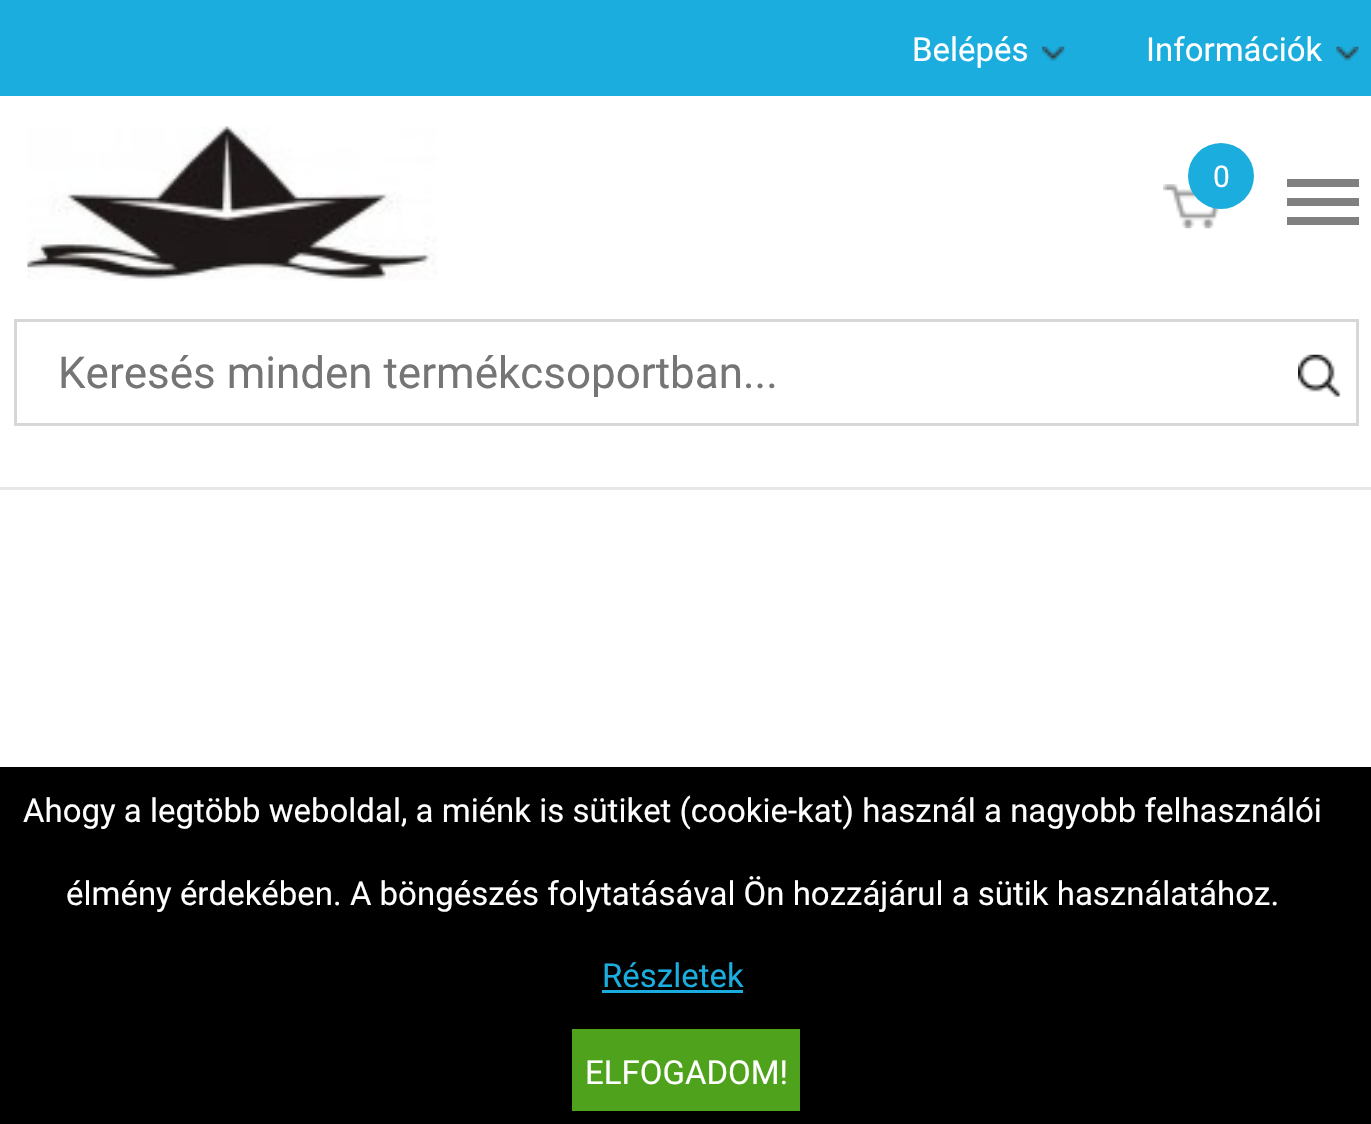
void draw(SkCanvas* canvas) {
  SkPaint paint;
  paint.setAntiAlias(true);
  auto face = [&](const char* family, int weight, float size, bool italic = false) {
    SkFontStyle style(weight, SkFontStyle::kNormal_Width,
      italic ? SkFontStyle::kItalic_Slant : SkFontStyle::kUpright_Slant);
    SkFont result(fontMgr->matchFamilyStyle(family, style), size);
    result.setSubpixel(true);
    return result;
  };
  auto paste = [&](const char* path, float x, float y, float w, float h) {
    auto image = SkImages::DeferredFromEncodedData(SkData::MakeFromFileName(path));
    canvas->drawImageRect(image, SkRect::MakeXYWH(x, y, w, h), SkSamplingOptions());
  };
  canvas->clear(0xffffffff);
  paint.setColor(0xff1aadde);
  canvas->drawRect(SkRect::MakeXYWH(0, 0, 1371, 96), paint);
  paste("img/1.png", 1042, 46, 23, 15);
  paste("img/2.png", 1336, 46, 23, 15);
  paint.setColor(0xffe7e7e7);
  canvas->drawRect(SkRect::MakeXYWH(0, 487, 1371, 3), paint);
  paste("img/3.png", 27, 126, 410, 155);
  paste("img/4.png", 1163, 184, 57, 45);
  paint.setColor(0xff1aadde);
  canvas->drawCircle(1221, 176, 33, paint);
  {
    const struct { float x, y, w, h; SkColor color; } items[] = {
      {1287, 179, 72, 8, 0xff808080},
      {1287, 198, 72, 8, 0xff808080},
      {1287, 217, 72, 8, 0xff808080},
    };
    for (auto [x, y, w, h, color] : items) {
      paint.setColor(color);
      canvas->drawRect(SkRect::MakeXYWH(x, y, w, h), paint);
    }
  }
  paint.setStroke(true);
  paint.setStrokeWidth(3);
  paint.setColor(0xffd7d7d7);
  canvas->drawRect(SkRect::MakeXYWH(15.5f, 320.5f, 1342, 104), paint);
  paste("img/5.png", 1298, 354, 43, 43);
  paint.setStroke(false);
  {
    const struct { float x, y, w, h; SkColor color; } items[] = {
      {0, 767, 1371, 357, 0xff000000},
      {602, 990, 141, 3, 0xff1aadde},
      {572, 1029, 228, 82, 0xff4fa31c},
    };
    for (auto [x, y, w, h, color] : items) {
      paint.setColor(color);
      canvas->drawRect(SkRect::MakeXYWH(x, y, w, h), paint);
    }
  }
  auto f0 = face("Roboto", 400, 33);
  paint.setColor(0xffffffff);
  canvas->drawString("Belépés", 912, 61, f0, paint);
  canvas->drawString("Információk", 1146, 61, f0, paint);
  auto f1 = face("Roboto", 400, 30);
  canvas->drawString("0", 1213, 187, f1, paint);
  auto f2 = face("Roboto", 400, 44);
  paint.setColor(0xff757575);
  canvas->drawString("Keresés minden termékcsoportban...", 58, 388, f2, paint);
  paint.setColor(0xffffffff);
  canvas->drawString("Ahogy a legtöbb weboldal, a miénk is sütiket (cookie-kat) használ a nagyobb felhasználói", 23, 822, f0, paint);
  canvas->drawString("élmény érdekében. A böngészés folytatásával Ön hozzájárul a sütik használatához.", 66, 905, f0, paint);
  paint.setColor(0xff1aadde);
  canvas->drawString("Részletek", 602, 987, f0, paint);
  paint.setColor(0xffffffff);
  canvas->drawString("ELFOGADOM!", 585, 1084, f0, paint);
}
